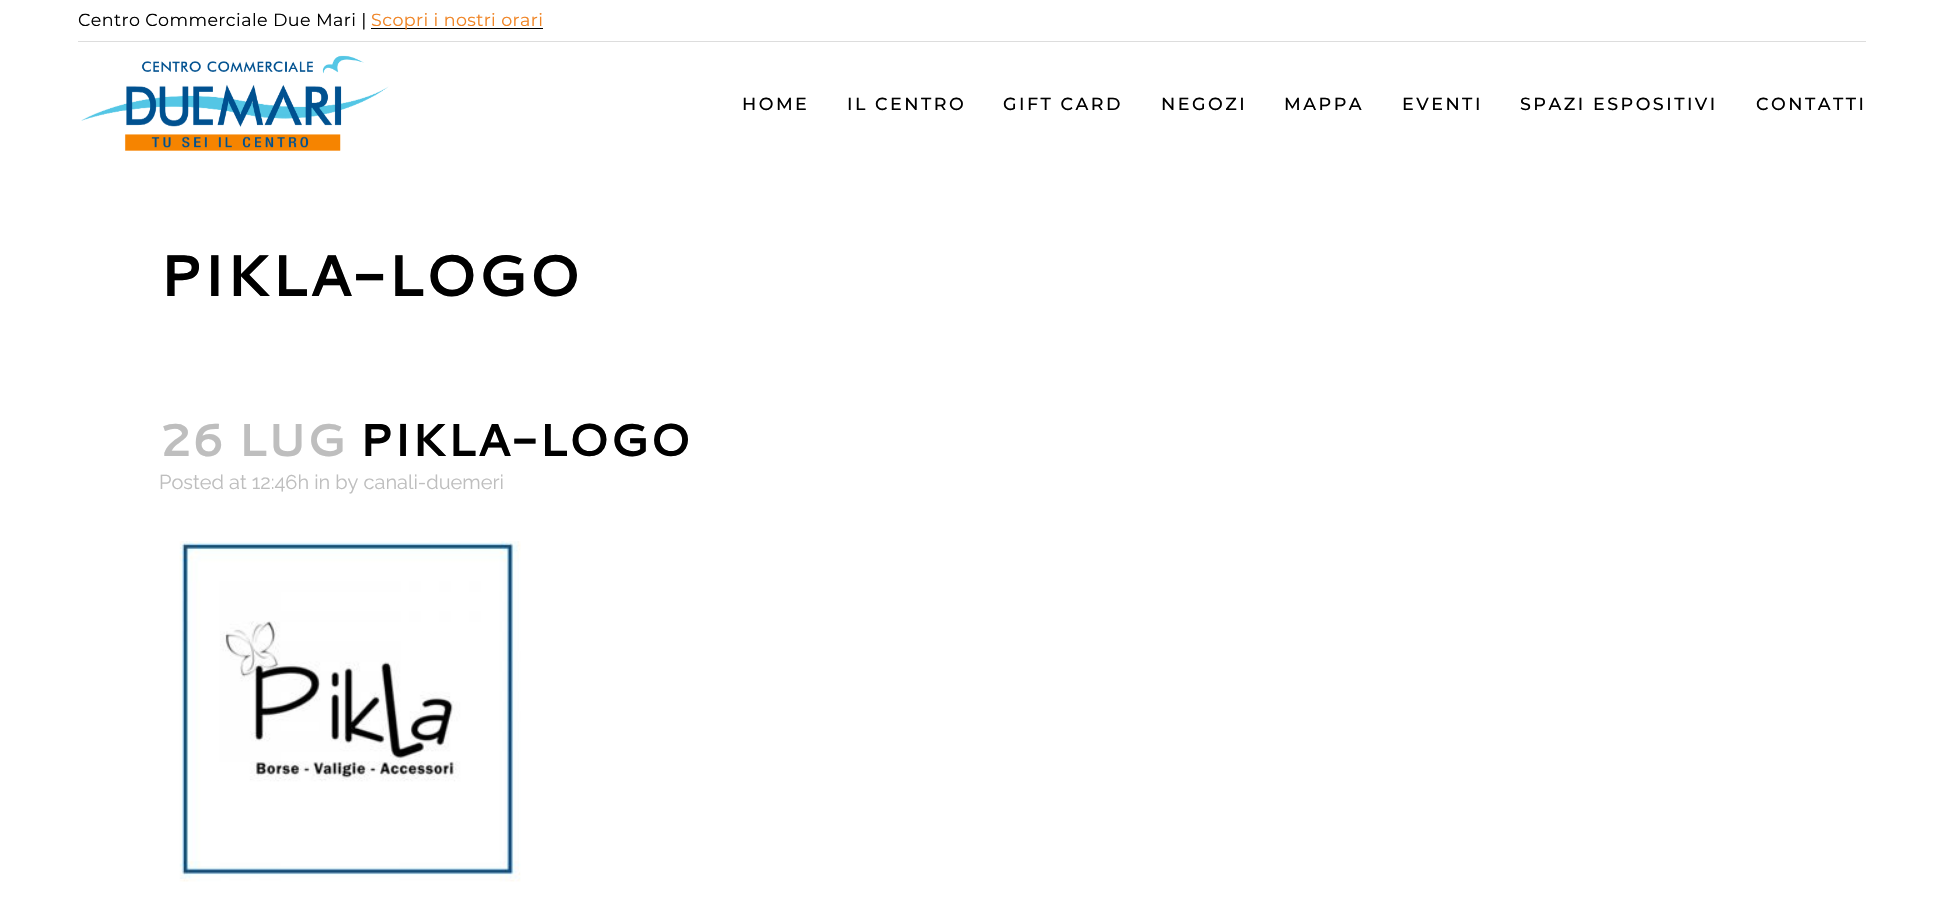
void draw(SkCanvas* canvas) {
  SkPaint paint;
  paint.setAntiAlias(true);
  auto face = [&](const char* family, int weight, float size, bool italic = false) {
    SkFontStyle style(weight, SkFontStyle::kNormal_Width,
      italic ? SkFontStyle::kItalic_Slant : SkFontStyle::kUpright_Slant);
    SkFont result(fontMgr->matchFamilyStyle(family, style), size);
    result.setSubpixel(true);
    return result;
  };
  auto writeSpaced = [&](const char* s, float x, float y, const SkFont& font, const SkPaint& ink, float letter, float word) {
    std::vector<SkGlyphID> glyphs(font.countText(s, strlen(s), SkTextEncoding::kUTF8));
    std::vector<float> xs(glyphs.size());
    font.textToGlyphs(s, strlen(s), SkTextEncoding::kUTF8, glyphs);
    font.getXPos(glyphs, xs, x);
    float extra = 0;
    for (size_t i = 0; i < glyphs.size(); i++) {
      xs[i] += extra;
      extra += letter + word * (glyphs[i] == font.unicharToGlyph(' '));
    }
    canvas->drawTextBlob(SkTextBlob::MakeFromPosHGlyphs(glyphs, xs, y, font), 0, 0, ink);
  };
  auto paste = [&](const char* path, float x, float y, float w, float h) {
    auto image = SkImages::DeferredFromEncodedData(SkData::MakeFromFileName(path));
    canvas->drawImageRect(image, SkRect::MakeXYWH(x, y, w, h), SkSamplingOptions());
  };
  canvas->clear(0xffffffff);
  paint.setColor(0xffdddddd);
  canvas->drawRect(SkRect::MakeXYWH(78, 41, 1788, 1), paint);
  paint.setColor(0xff000000);
  canvas->drawRect(SkRect::MakeXYWH(371, 28, 172, 1), paint);
  paste("img/1.png", 81, 55, 308, 96);
  paste("img/2.png", 179, 541, 342, 341);
  auto f0 = face("Montserrat", 400, 17.5f);
  writeSpaced("Centro Commerciale Due Mari |", 78, 26, f0, paint, 0.4f, 0);
  paint.setColor(0xfff08424);
  writeSpaced("Scopri i nostri orari", 371, 26, f0, paint, 0.4f, 0);
  auto f1 = face("Montserrat", 500, 17.5f);
  paint.setColor(0xff000000);
  {
    const struct { const char* s; float x, y; } items[] = {
      {"HOME", 742, 110},
      {"IL CENTRO", 847, 110},
      {"GIFT CARD", 1003, 110},
      {"NEGOZI", 1161, 110},
      {"MAPPA", 1284, 110},
      {"EVENTI", 1402, 110},
      {"SPAZI ESPOSITIVI", 1520, 110},
      {"CONTATTI", 1756, 110},
    };
    for (auto [s, x, y] : items) {
      writeSpaced(s, x, y, f1, paint, 2.5f, 0);
    }
  }
  auto f2 = face("Cantarell", 700, 58.75f);
  canvas->drawString("PIKLA-LOGO", 159, 296, f2, paint);
  auto f3 = face("Cantarell", 700, 46.25f);
  paint.setColor(0xffbebebe);
  canvas->drawString("26 LUG", 159, 456, f3, paint);
  paint.setColor(0xff000000);
  canvas->drawString("PIKLA-LOGO", 359, 456, f3, paint);
  auto f4 = face("Raleway", 400, 20);
  paint.setColor(0xffbebebe);
  canvas->drawString("Posted at 12:46h in by canali-duemeri", 159, 489, f4, paint);
}
